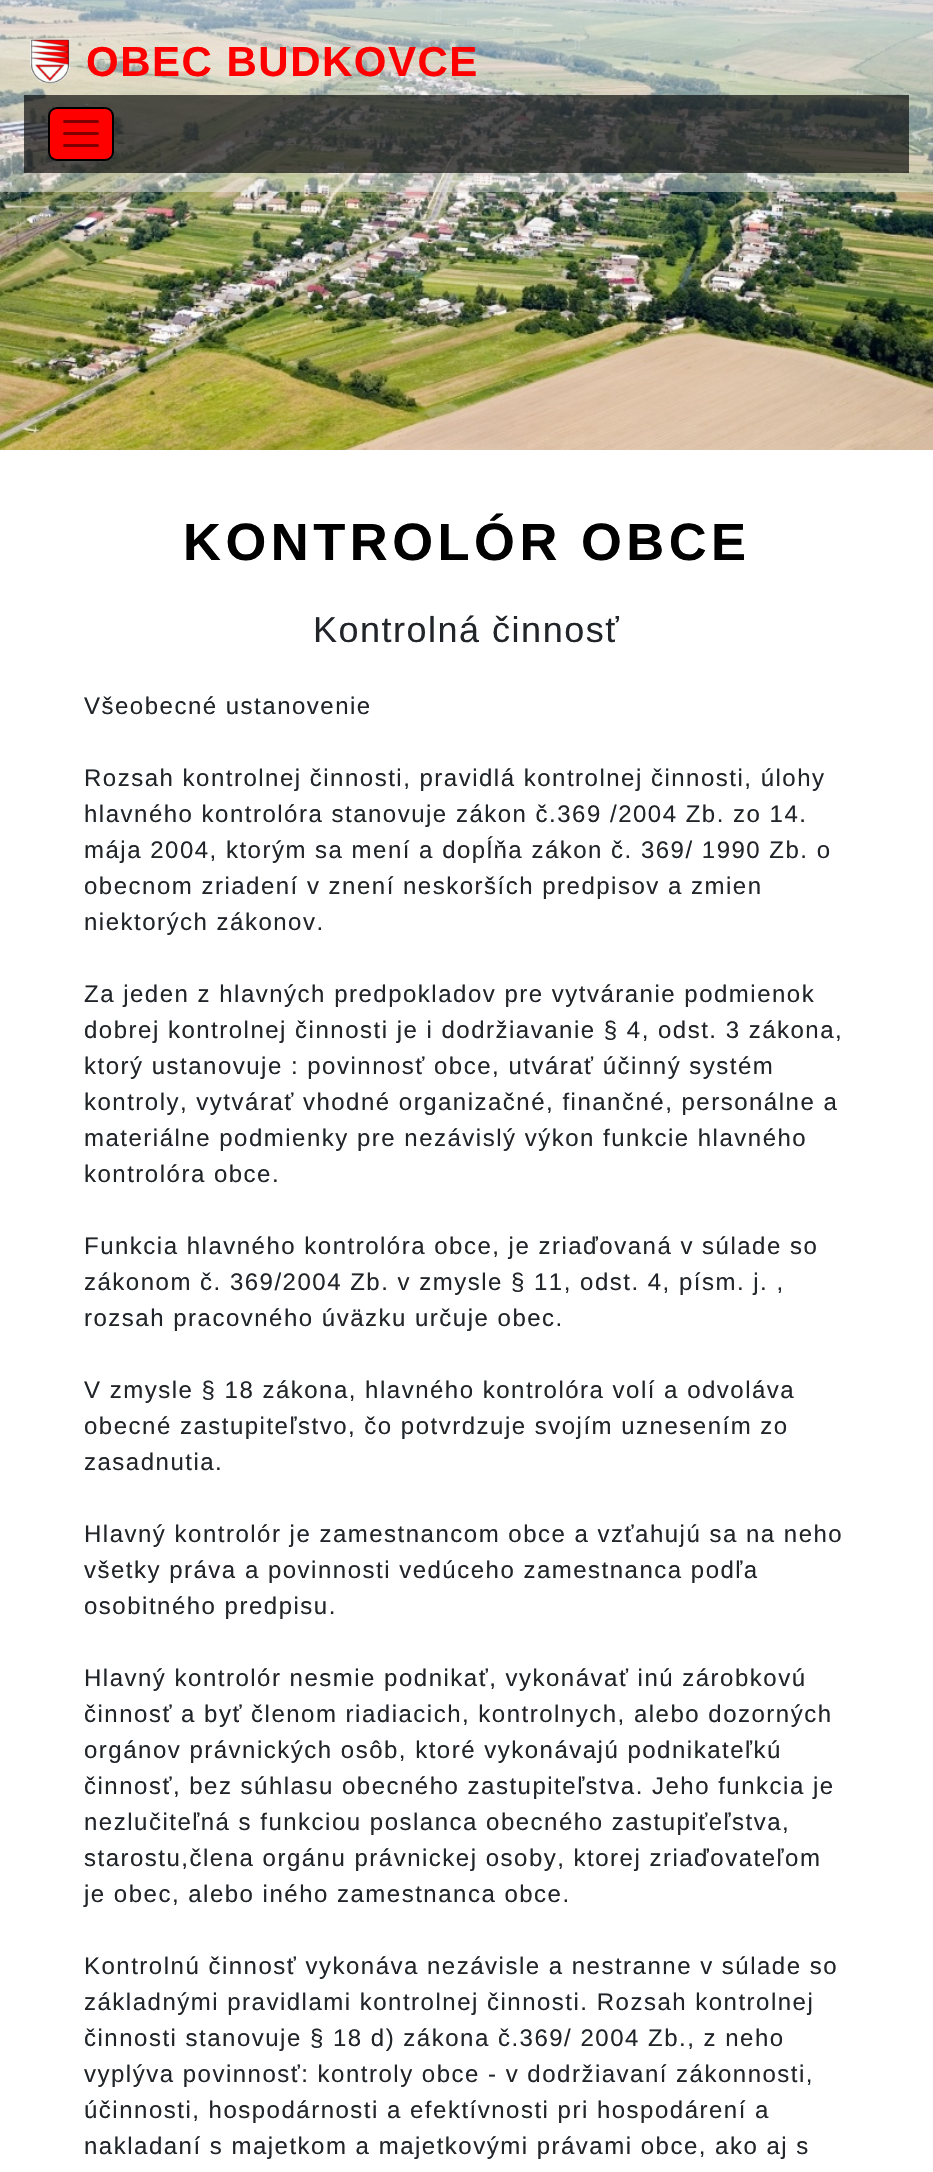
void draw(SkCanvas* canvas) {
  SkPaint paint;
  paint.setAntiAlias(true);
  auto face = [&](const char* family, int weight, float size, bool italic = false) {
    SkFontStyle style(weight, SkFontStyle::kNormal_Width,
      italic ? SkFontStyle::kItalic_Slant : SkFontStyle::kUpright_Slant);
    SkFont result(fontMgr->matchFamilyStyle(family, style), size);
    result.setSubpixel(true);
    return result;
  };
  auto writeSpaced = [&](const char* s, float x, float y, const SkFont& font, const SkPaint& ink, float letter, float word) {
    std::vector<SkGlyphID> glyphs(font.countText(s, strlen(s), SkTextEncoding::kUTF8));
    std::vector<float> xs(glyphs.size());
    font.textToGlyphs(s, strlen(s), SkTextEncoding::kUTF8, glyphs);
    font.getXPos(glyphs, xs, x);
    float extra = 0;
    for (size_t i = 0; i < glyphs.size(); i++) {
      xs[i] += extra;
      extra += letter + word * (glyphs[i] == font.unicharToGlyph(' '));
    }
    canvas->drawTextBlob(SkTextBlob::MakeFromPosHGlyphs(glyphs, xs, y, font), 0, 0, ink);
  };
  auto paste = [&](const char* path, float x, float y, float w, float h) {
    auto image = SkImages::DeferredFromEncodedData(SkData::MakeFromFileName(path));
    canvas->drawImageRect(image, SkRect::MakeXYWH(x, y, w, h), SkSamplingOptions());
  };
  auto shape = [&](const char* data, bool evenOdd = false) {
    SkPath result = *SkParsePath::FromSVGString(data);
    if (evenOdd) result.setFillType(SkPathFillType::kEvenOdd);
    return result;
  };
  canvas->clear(0xffffffff);
  paste("img/1.png", 0, 0, 933, 450);
  paint.setColor(0x6bf5f5f5);
  canvas->drawRect(SkRect::MakeXYWH(0, 0, 933, 192), paint);
  paste("img/2.png", 30, 39, 40, 45);
  paint.setColor(0xa6000000);
  canvas->drawRect(SkRect::MakeXYWH(24, 95, 885, 78), paint);
  paint.setColor(0xffff0000);
  canvas->drawRoundRect(SkRect::MakeXYWH(49, 108, 64, 52), 8, 8, paint);
  paint.setStroke(true);
  paint.setStrokeWidth(2);
  paint.setColor(0xff000000);
  canvas->drawRoundRect(SkRect::MakeXYWH(49, 108, 64, 52), 8, 8, paint);
  paint.setStrokeWidth(3);
  paint.setStrokeCap(SkPaint::kRound_Cap);
  paint.setColor(0xff800000);
  canvas->drawPath(shape("M64.5 121.5H97.5M64.5 133.5H97.5M64.5 145.5H97.5"), paint);
  auto f0 = face("Arimo", 700, 42);
  paint.setStroke(false);
  paint.setColor(0xffff0000);
  writeSpaced("OBEC BUDKOVCE", 86, 76, f0, paint, 1.5f, 0);
  auto f1 = face("Arimo", 700, 52.5f);
  paint.setColor(0xff000000);
  writeSpaced("KONTROLÓR OBCE", 183, 560, f1, paint, 4.5f, 0);
  auto f2 = face("Arimo", 400, 36);
  paint.setColor(0xff212529);
  writeSpaced("Kontrolná činnosť", 313, 642, f2, paint, 1.5f, 0);
  auto f3 = face("Arimo", 400, 24);
  {
    const struct { const char* s; float x, y; } items[] = {
      {"Všeobecné ustanovenie", 84, 714},
      {"Rozsah kontrolnej činnosti, pravidlá kontrolnej činnosti, úlohy", 84, 786},
      {"hlavného kontrolóra stanovuje zákon č.369 /2004 Zb. zo 14.", 84, 822},
      {"mája 2004, ktorým sa mení a dopĺňa zákon č. 369/ 1990 Zb. o", 84, 858},
      {"obecnom zriadení v znení neskorších predpisov a zmien", 84, 894},
      {"niektorých zákonov.", 84, 930},
      {"Za jeden z hlavných predpokladov pre vytváranie podmienok", 84, 1002},
      {"dobrej kontrolnej činnosti je i dodržiavanie § 4, odst. 3 zákona,", 84, 1038},
      {"ktorý ustanovuje : povinnosť obce, utvárať účinný systém", 84, 1074},
      {"kontroly, vytvárať vhodné organizačné, finančné, personálne a", 84, 1110},
      {"materiálne podmienky pre nezávislý výkon funkcie hlavného", 84, 1146},
      {"kontrolóra obce.", 84, 1182},
      {"Funkcia hlavného kontrolóra obce, je zriaďovaná v súlade so", 84, 1254},
      {"zákonom č. 369/2004 Zb. v zmysle § 11, odst. 4, písm. j. ,", 84, 1290},
      {"rozsah pracovného úväzku určuje obec.", 84, 1326},
      {"V zmysle § 18 zákona, hlavného kontrolóra volí a odvoláva", 84, 1398},
      {"obecné zastupiteľstvo, čo potvrdzuje svojím uznesením zo", 84, 1434},
      {"zasadnutia.", 84, 1470},
      {"Hlavný kontrolór je zamestnancom obce a vzťahujú sa na neho", 84, 1542},
      {"všetky práva a povinnosti vedúceho zamestnanca podľa", 84, 1578},
      {"osobitného predpisu.", 84, 1614},
      {"Hlavný kontrolór nesmie podnikať, vykonávať inú zárobkovú", 84, 1686},
      {"činnosť a byť členom riadiacich, kontrolnych, alebo dozorných", 84, 1722},
      {"orgánov právnických osôb, ktoré vykonávajú podnikateľkú", 84, 1758},
      {"činnosť, bez súhlasu obecného zastupiteľstva. Jeho funkcia je", 84, 1794},
      {"nezlučiteľná s funkciou poslanca obecného zastupiťeľstva,", 84, 1830},
      {"starostu,člena orgánu právnickej osoby, ktorej zriaďovateľom", 84, 1866},
      {"je obec, alebo iného zamestnanca obce.", 84, 1902},
      {"Kontrolnú činnosť vykonáva nezávisle a nestranne v súlade so", 84, 1974},
      {"základnými pravidlami kontrolnej činnosti. Rozsah kontrolnej", 84, 2010},
      {"činnosti stanovuje § 18 d) zákona č.369/ 2004 Zb., z neho", 84, 2046},
      {"vyplýva povinnosť: kontroly obce - v dodržiavaní zákonnosti,", 84, 2082},
      {"účinnosti, hospodárnosti a efektívnosti pri hospodárení a", 84, 2118},
      {"nakladaní s majetkom a majetkovými právami obce, ako aj s", 84, 2154},
    };
    for (auto [s, x, y] : items) {
      writeSpaced(s, x, y, f3, paint, 1.5f, 0);
    }
  }
}
